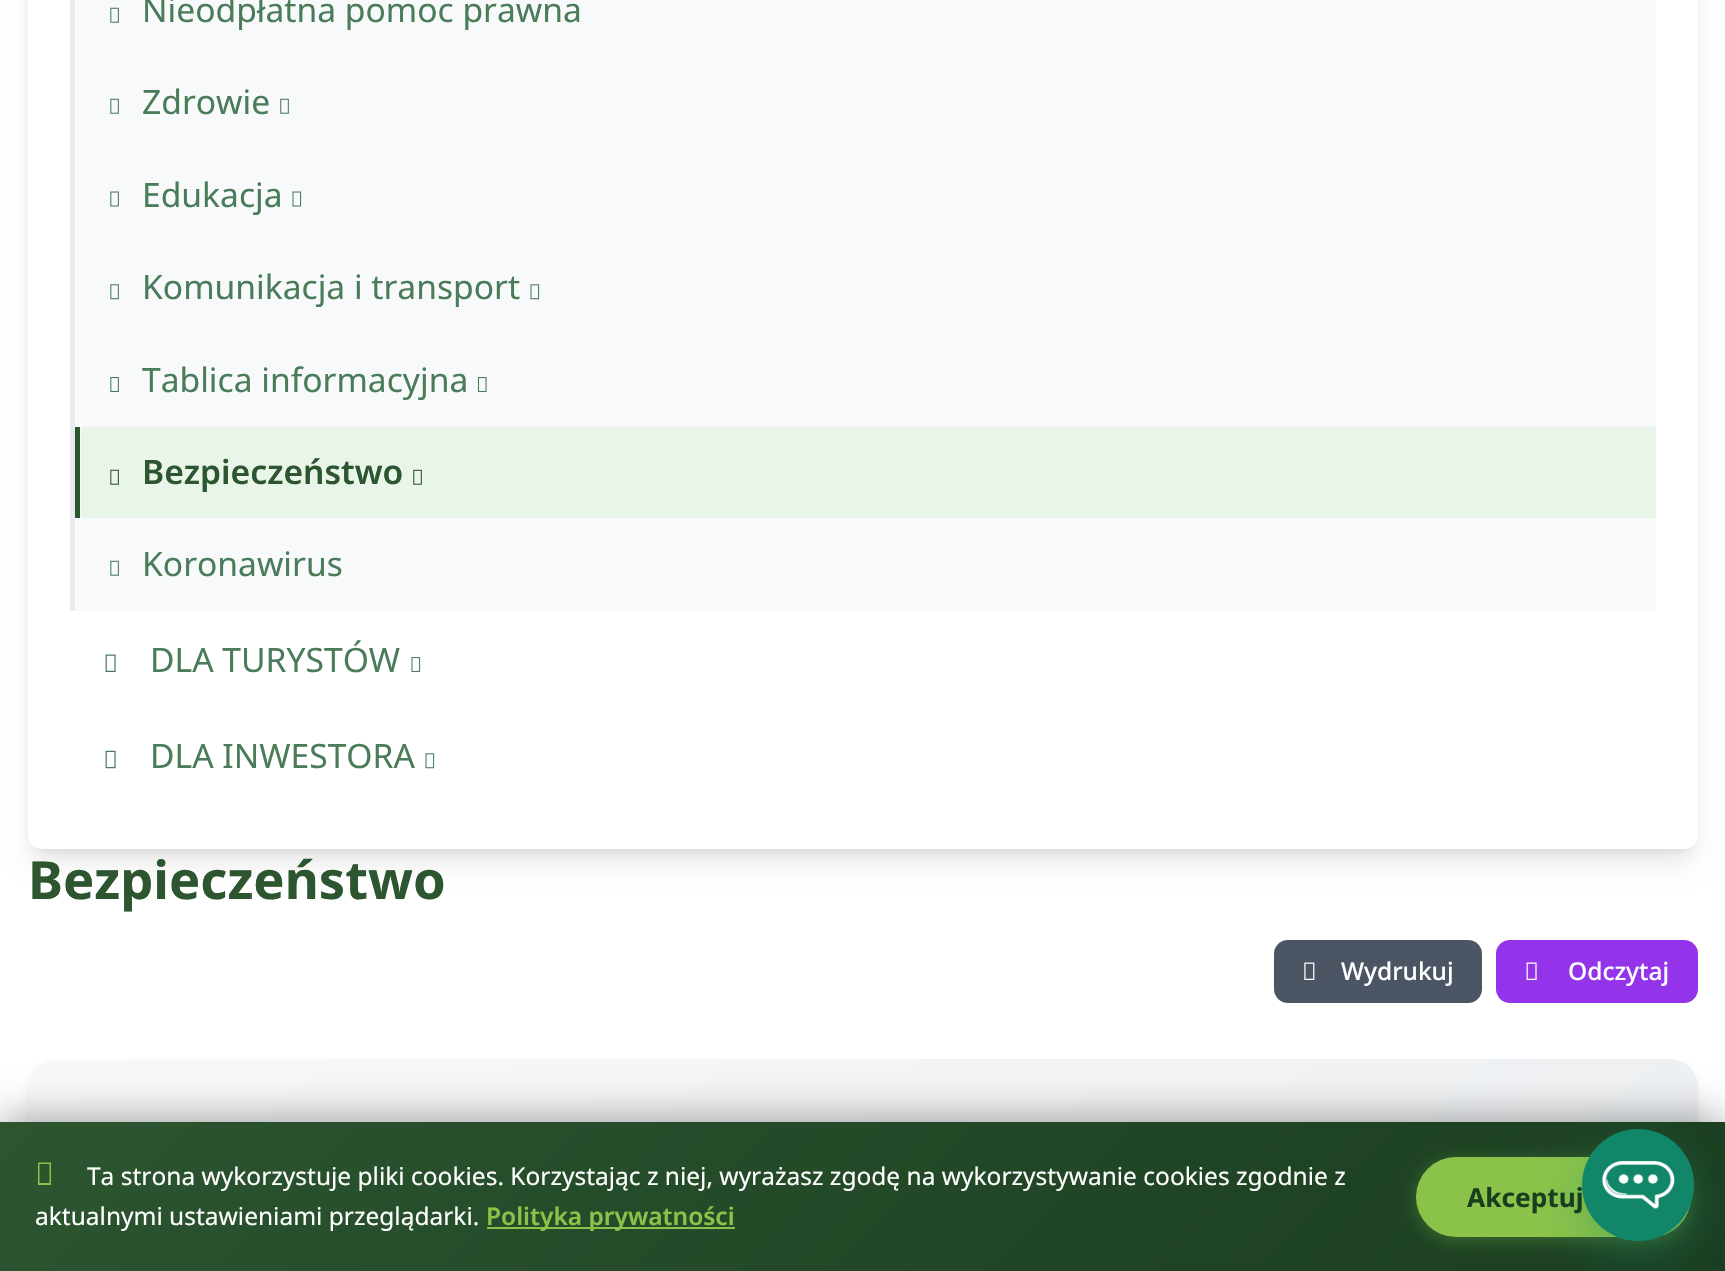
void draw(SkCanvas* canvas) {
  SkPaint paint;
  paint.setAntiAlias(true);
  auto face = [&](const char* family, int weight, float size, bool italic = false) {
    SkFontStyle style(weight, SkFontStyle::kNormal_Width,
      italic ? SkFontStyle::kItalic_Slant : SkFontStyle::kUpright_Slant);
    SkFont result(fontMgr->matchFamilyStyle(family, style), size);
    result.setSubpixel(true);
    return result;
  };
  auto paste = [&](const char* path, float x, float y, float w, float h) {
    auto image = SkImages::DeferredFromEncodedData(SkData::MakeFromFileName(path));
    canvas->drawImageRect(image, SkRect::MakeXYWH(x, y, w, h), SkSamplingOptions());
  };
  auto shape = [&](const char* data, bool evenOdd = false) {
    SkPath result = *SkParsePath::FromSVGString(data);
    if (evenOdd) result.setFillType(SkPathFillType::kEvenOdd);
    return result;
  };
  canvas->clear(0xffffffff);
  paint.setColor(0x1a000000);
  paint.setMaskFilter(SkMaskFilter::MakeBlur(kNormal_SkBlurStyle, 5));
  canvas->drawRoundRect(SkRect::MakeXYWH(35, -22, 1656, 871), 7, 7, paint);
  paint.setMaskFilter(nullptr);
  paint.setMaskFilter(SkMaskFilter::MakeBlur(kNormal_SkBlurStyle, 13));
  canvas->drawRoundRect(SkRect::MakeXYWH(33, -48, 1659, 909), 9, 9, paint);
  paint.setMaskFilter(nullptr);
  paint.setColor(0xffffffff);
  canvas->drawRoundRect(SkRect::MakeXYWH(28, -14, 1670, 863), 14, 14, paint);
  paint.setColor(0xfff8f9fa);
  canvas->drawRect(SkRect::MakeXYWH(75, 0, 1581, 611), paint);
  paint.setColor(0xffe9ecef);
  canvas->drawRect(SkRect::MakeXYWH(70, 0, 5, 611), paint);
  paste("img/1.png", 110, 7, 9, 16);
  paste("img/1.png", 110, 98, 9, 16);
  paste("img/2.png", 280, 98, 9, 16);
  paste("img/3.png", 110, 191, 9, 16);
  paste("img/4.png", 292, 191, 10, 16);
  paste("img/5.png", 110, 284, 9, 16);
  paste("img/6.png", 530, 284, 10, 16);
  paste("img/7.png", 110, 377, 9, 15);
  paste("img/8.png", 477, 377, 10, 15);
  paint.setColor(0xffe8f5e8);
  canvas->drawRect(SkRect::MakeXYWH(81, 427, 1575, 91), paint);
  paint.setColor(0xff2c5530);
  canvas->drawRect(SkRect::MakeXYWH(75, 427, 5, 91), paint);
  paste("img/9.png", 110, 469, 9, 16);
  paste("img/10.png", 413, 469, 9, 16);
  paste("img/1.png", 110, 560, 9, 16);
  paste("img/11.png", 105, 654, 11, 18);
  paste("img/12.png", 411, 657, 10, 15);
  paste("img/13.png", 105, 750, 11, 19);
  paste("img/14.png", 425, 753, 10, 16);
  paint.setColor(0xff4b5563);
  canvas->drawRoundRect(SkRect::MakeXYWH(1274, 940, 208, 63), 14, 14, paint);
  paste("img/15.png", 1304, 962, 11, 18);
  paint.setColor(0xff9333ea);
  canvas->drawRoundRect(SkRect::MakeXYWH(1496, 940, 202, 63), 14, 14, paint);
  paste("img/16.png", 1526, 962, 11, 18);
  paint.setColor(0x1a000000);
  paint.setMaskFilter(SkMaskFilter::MakeBlur(kNormal_SkBlurStyle, 5));
  canvas->drawRoundRect(SkRect::MakeXYWH(30, 1068, 1666, 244), 26, 26, paint);
  paint.setMaskFilter(nullptr);
  {
    const SkColor colors[] = {0xfff8f9fa, 0xffe9ecef};
    const float stops[] = {0, 1};
    const SkPoint ends[] = {{219, 868}, {1507, 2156}};
    paint.setShader(SkGradientShader::MakeLinear(ends, colors, stops, 2, SkTileMode::kClamp));
    paint.setAlpha(255);
  }
  canvas->drawRoundRect(SkRect::MakeXYWH(28, 1059, 1670, 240), 28, 28, paint);
  paint.setShader(nullptr);
  paint.setColor(0x4d000000);
  paint.setMaskFilter(SkMaskFilter::MakeBlur(kNormal_SkBlurStyle, 17.5f));
  canvas->drawRect(SkRect::MakeXYWH(0, 1115, 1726, 150), paint);
  paint.setMaskFilter(nullptr);
  {
    const SkColor colors[] = {0xff2c5530, 0xff1a3d1f};
    const float stops[] = {0, 1};
    const SkPoint ends[] = {{394, 728}, {1332, 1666}};
    paint.setShader(SkGradientShader::MakeLinear(ends, colors, stops, 2, SkTileMode::kClamp));
    paint.setAlpha(255);
  }
  canvas->drawRect(SkRect::MakeXYWH(0, 1122, 1725, 149), paint);
  paint.setShader(nullptr);
  paint.setColor(0xff8bc34a);
  canvas->drawPath(shape("M38 1185V1162.5H51V1185ZM39.5 1183H49.5V1164H39.5Z"), paint);
  canvas->drawRect(SkRect::MakeXYWH(487, 1227, 248, 2), paint);
  paint.setColor(0x4d8bc34a);
  paint.setMaskFilter(SkMaskFilter::MakeBlur(kNormal_SkBlurStyle, 9));
  canvas->drawRoundRect(SkRect::MakeXYWH(1416, 1160, 275, 81), 40.5f, 40.5f, paint);
  paint.setMaskFilter(nullptr);
  paint.setColor(0xff8bc34a);
  canvas->drawRoundRect(SkRect::MakeXYWH(1416, 1157, 275, 80), 40, 40, paint);
  paint.setColor(0x59118668);
  paint.setMaskFilter(SkMaskFilter::MakeBlur(kNormal_SkBlurStyle, 26));
  canvas->drawRoundRect(SkRect::MakeXYWH(1582, 1146, 112, 112), 56, 56, paint);
  paint.setMaskFilter(nullptr);
  auto f0 = face("Noto Sans", 400, 33.6f);
  paint.setColor(0xff4a7c59);
  {
    const struct { const char* s; float x, y; } items[] = {
      {"Nieodpłatna pomoc prawna", 142, 22},
      {"Zdrowie", 142, 114},
      {"Edukacja", 142, 207},
      {"Komunikacja i transport", 142, 299},
      {"Tablica informacyjna", 142, 392},
    };
    for (auto [s, x, y] : items) {
      canvas->drawString(s, x, y, f0, paint);
    }
  }
  auto f1 = face("Noto Sans", 600, 33.6f);
  paint.setColor(0xff2c5530);
  canvas->drawString("Bezpieczeństwo", 142, 484, f1, paint);
  paint.setColor(0xff4a7c59);
  {
    const struct { const char* s; float x, y; } items[] = {
      {"Koronawirus", 142, 576},
      {"DLA TURYSTÓW", 150, 672},
      {"DLA INWESTORA", 150, 768},
    };
    for (auto [s, x, y] : items) {
      canvas->drawString(s, x, y, f0, paint);
    }
  }
  auto f2 = face("Noto Sans", 700, 52.5f);
  paint.setColor(0xff2c5530);
  canvas->drawString("Bezpieczeństwo", 28, 899, f2, paint);
  auto f3 = face("Noto Sans", 500, 24.5f);
  paint.setColor(0xffffffff);
  canvas->drawString("Wydrukuj", 1341, 980, f3, paint);
  canvas->drawString("Odczytaj", 1568, 980, f3, paint);
  auto f4 = face("Noto Sans", 400, 24.5f);
  canvas->drawString("Ta strona wykorzystuje pliki cookies. Korzystając z niej, wyrażasz zgodę na wykorzystywanie cookies zgodnie z", 87, 1185, f4, paint);
  canvas->drawString("aktualnymi ustawieniami przeglądarki.", 35, 1225, f4, paint);
  auto f5 = face("Noto Sans", 600, 24.5f);
  paint.setColor(0xff8bc34a);
  canvas->drawString("Polityka prywatności", 486, 1225, f5, paint);
  auto f6 = face("Noto Sans", 700, 26.25f);
  paint.setColor(0xff1a3d1f);
  canvas->drawString("Akceptuj", 1467, 1207, f6, paint);
  paint.setColor(0xff118668);
  canvas->drawCircle(1638, 1185, 56, paint);
  paste("img/17.png", 1602, 1160, 73, 49);
}
